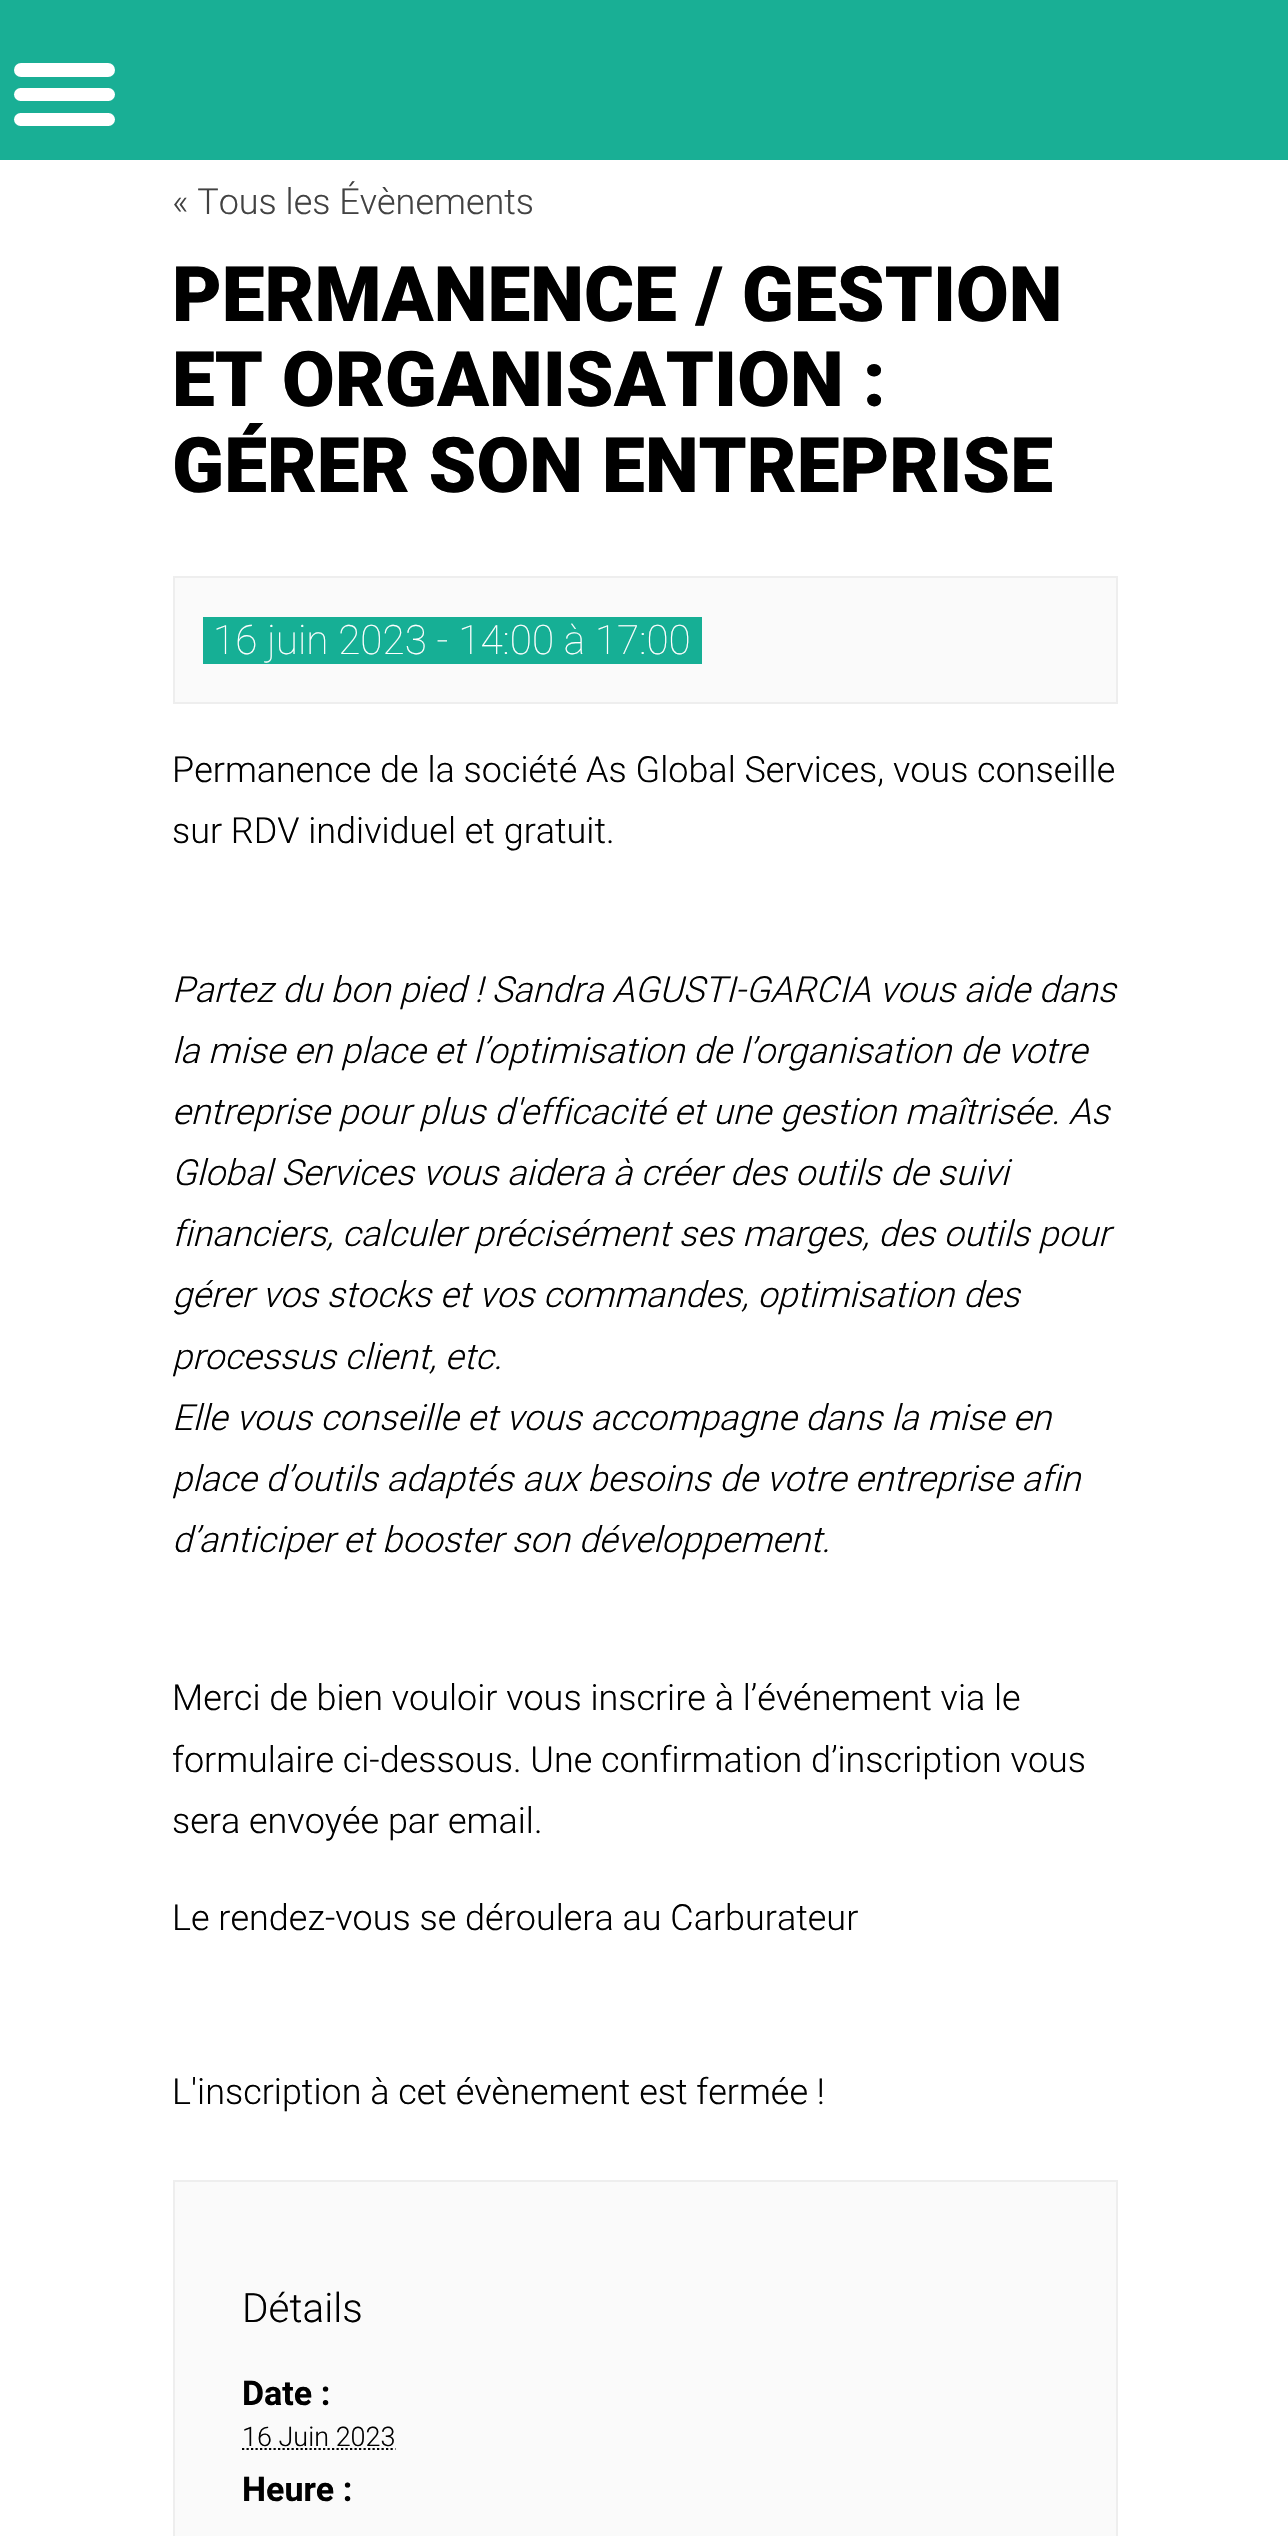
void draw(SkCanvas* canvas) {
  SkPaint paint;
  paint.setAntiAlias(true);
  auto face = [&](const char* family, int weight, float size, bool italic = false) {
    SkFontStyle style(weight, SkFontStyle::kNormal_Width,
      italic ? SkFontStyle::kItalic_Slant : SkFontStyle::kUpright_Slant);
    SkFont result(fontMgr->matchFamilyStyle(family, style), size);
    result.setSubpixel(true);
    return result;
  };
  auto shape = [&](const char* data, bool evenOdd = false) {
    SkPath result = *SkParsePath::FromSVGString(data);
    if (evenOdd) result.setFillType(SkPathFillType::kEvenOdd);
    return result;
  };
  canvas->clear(0xffffffff);
  paint.setColor(0xff19af95);
  canvas->drawRect(SkRect::MakeXYWH(0, 0, 1288, 160), paint);
  paint.setColor(0xffffffff);
  canvas->drawRoundRect(SkRect::MakeXYWH(14, 63, 101, 14), 7, 7, paint);
  canvas->drawRoundRect(SkRect::MakeXYWH(14, 88, 101, 13), 6.5f, 6.5f, paint);
  canvas->drawRoundRect(SkRect::MakeXYWH(14, 113, 101, 13), 6.5f, 6.5f, paint);
  paint.setColor(0xfffafafa);
  canvas->drawRect(SkRect::MakeXYWH(174, 577, 943, 126), paint);
  paint.setStroke(true);
  paint.setStrokeWidth(2);
  paint.setColor(0xffeeeeee);
  canvas->drawRect(SkRect::MakeXYWH(174, 577, 943, 126), paint);
  paint.setStroke(false);
  paint.setColor(0xff16af95);
  canvas->drawRect(SkRect::MakeXYWH(203, 617, 499, 47), paint);
  paint.setColor(0xfffafafa);
  canvas->drawRect(SkRect::MakeXYWH(174, 2181, 943, 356), paint);
  paint.setStroke(true);
  paint.setColor(0xffeeeeee);
  canvas->drawRect(SkRect::MakeXYWH(174, 2181, 943, 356), paint);
  paint.setStrokeWidth(2.2f);
  paint.setColor(0xff000000);
  paint.setPathEffect(SkDashPathEffect::Make({{2.25f, 2.25f}}, 0));
  canvas->drawPath(shape("M242 2449H395.5"), paint);
  paint.setPathEffect(nullptr);
  auto f0 = face("Roboto", 300, 36);
  paint.setStroke(false);
  paint.setColor(0xff424242);
  canvas->drawString("« Tous les Évènements", 172, 214, f0, paint);
  auto f1 = face("Roboto", 900, 76.5f);
  paint.setColor(0xff000000);
  {
    const struct { const char* s; float x, y; } items[] = {
      {"PERMANENCE / GESTION", 172, 321},
      {"ET ORGANISATION :", 172, 406},
      {"GÉRER SON ENTREPRISE", 172, 492},
    };
    for (auto [s, x, y] : items) {
      canvas->drawString(s, x, y, f1, paint);
    }
  }
  auto f2 = face("Roboto", 100, 40.5f);
  paint.setColor(0xffffffff);
  canvas->drawString("16 juin 2023 - 14:00 à 17:00", 213, 654, f2, paint);
  paint.setColor(0xff000000);
  canvas->drawString("Permanence de la société As Global Services, vous conseille", 172, 782, f0, paint);
  canvas->drawString("sur RDV individuel et gratuit.", 172, 843, f0, paint);
  auto f3 = face("Roboto", 300, 36, true);
  {
    const struct { const char* s; float x, y; } items[] = {
      {"Partez du bon pied ! Sandra AGUSTI-GARCIA vous aide dans", 172, 1002},
      {"la mise en place et l’optimisation de l’organisation de votre", 172, 1063},
      {"entreprise pour plus d'efficacité et une gestion maîtrisée. As", 172, 1124},
      {"Global Services vous aidera à créer des outils de suivi", 172, 1185},
      {"financiers, calculer précisément ses marges, des outils pour", 172, 1246},
      {"gérer vos stocks et vos commandes, optimisation des", 172, 1307},
      {"processus client, etc.", 172, 1369},
      {"Elle vous conseille et vous accompagne dans la mise en", 172, 1430},
      {"place d’outils adaptés aux besoins de votre entreprise afin", 172, 1491},
      {"d’anticiper et booster son développement.", 172, 1552},
    };
    for (auto [s, x, y] : items) {
      canvas->drawString(s, x, y, f3, paint);
    }
  }
  {
    const struct { const char* s; float x, y; } items[] = {
      {"Merci de bien vouloir vous inscrire à l’événement via le", 172, 1710},
      {"formulaire ci-dessous. Une confirmation d’inscription vous", 172, 1772},
      {"sera envoyée par email.", 172, 1833},
      {"Le rendez-vous se déroulera au Carburateur", 172, 1930},
      {"L'inscription à cet évènement est fermée !", 172, 2104},
    };
    for (auto [s, x, y] : items) {
      canvas->drawString(s, x, y, f0, paint);
    }
  }
  auto f4 = face("Roboto", 300, 40.5f);
  canvas->drawString("Détails", 242, 2322, f4, paint);
  auto f5 = face("Roboto", 700, 34);
  canvas->drawString("Date :", 242, 2405, f5, paint);
  auto f6 = face("Roboto", 300, 27);
  canvas->drawString("16 Juin 2023", 242, 2446, f6, paint);
  canvas->drawString("Heure :", 242, 2501, f5, paint);
}
